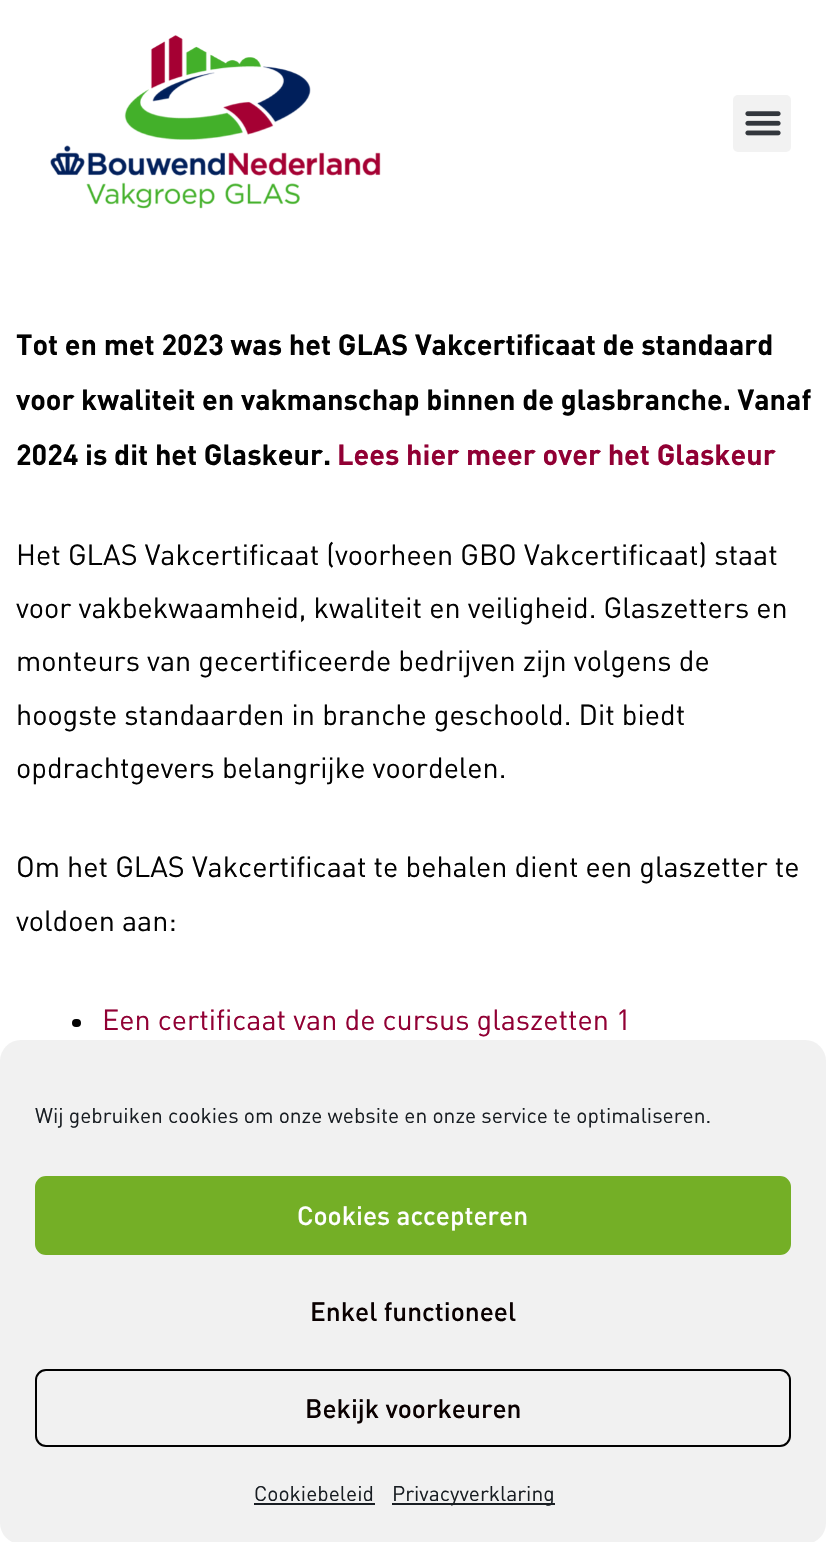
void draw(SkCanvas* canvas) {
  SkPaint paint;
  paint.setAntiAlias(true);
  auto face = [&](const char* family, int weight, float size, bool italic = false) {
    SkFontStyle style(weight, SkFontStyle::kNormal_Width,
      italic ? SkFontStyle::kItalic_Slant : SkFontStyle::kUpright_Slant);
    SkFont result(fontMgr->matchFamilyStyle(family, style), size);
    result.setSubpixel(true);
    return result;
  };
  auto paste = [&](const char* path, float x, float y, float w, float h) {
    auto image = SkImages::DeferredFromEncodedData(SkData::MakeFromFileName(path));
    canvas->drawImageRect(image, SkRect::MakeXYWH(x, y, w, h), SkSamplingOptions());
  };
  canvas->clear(0xffffffff);
  paste("img/1.png", 50, 35, 331, 174);
  paint.setColor(0xfff2f2f2);
  canvas->drawRoundRect(SkRect::MakeXYWH(733, 95, 58, 57), 5, 5, paint);
  paste("img/2.png", 745, 111, 36, 25);
  paint.setColor(0xff020202);
  canvas->drawRoundRect(SkRect::MakeXYWH(72, 1019, 9, 8), 4, 4, paint);
  paint.setColor(0xfff1f1f1);
  canvas->drawRoundRect(SkRect::MakeXYWH(0, 1040, 826, 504), 21, 21, paint);
  paint.setColor(0xff74af26);
  canvas->drawRoundRect(SkRect::MakeXYWH(36, 1177, 754, 77), 10, 10, paint);
  paint.setStroke(true);
  paint.setStrokeWidth(2);
  canvas->drawRoundRect(SkRect::MakeXYWH(36, 1177, 754, 77), 10, 10, paint);
  paint.setColor(0xff000000);
  canvas->drawRoundRect(SkRect::MakeXYWH(36, 1370, 754, 76), 10, 10, paint);
  paint.setStroke(false);
  paint.setColor(0xff191e23);
  canvas->drawRect(SkRect::MakeXYWH(254, 1503, 121, 2), paint);
  canvas->drawRect(SkRect::MakeXYWH(392, 1503, 163, 2), paint);
  auto f0 = face("DIN", 700, 28.75f);
  paint.setColor(0xff020202);
  {
    const struct { const char* s; float x, y; } items[] = {
      {"Tot en met 2023 was het GLAS Vakcertificaat de standaard", 16, 355},
      {"voor kwaliteit en vakmanschap binnen de glasbranche. Vanaf", 16, 410},
      {"2024 is dit het Glaskeur.", 16, 465},
    };
    for (auto [s, x, y] : items) {
      canvas->drawString(s, x, y, f0, paint);
    }
  }
  paint.setColor(0xff910034);
  canvas->drawString("Lees hier meer over het Glaskeur", 337, 465, f0, paint);
  auto f1 = face("DIN", 400, 28.75f);
  paint.setColor(0xff020202);
  {
    const struct { const char* s; float x, y; } items[] = {
      {"Het GLAS Vakcertificaat (voorheen GBO Vakcertificaat) staat", 16, 565},
      {"voor vakbekwaamheid, kwaliteit en veiligheid. Glaszetters en", 16, 618},
      {"monteurs van gecertificeerde bedrijven zijn volgens de", 16, 671},
      {"hoogste standaarden in branche geschoold. Dit biedt", 16, 725},
      {"opdrachtgevers belangrijke voordelen.", 16, 778},
      {"Om het GLAS Vakcertificaat te behalen dient een glaszetter te", 16, 877},
      {"voldoen aan:", 16, 931},
    };
    for (auto [s, x, y] : items) {
      canvas->drawString(s, x, y, f1, paint);
    }
  }
  paint.setColor(0xff910034);
  canvas->drawString("Een certificaat van de cursus glaszetten 1", 102, 1030, f1, paint);
  auto f2 = face("DIN", 400, 21);
  paint.setColor(0xff191e23);
  canvas->drawString("Wij gebruiken cookies om onze website en onze service te optimaliseren.", 35, 1123, f2, paint);
  auto f3 = face("DIN", 500, 26.25f);
  paint.setColor(0xffffffff);
  canvas->drawString("Cookies accepteren", 297, 1225, f3, paint);
  paint.setColor(0xff0a0000);
  canvas->drawString("Enkel functioneel", 310, 1321, f3, paint);
  canvas->drawString("Bekijk voorkeuren", 305, 1418, f3, paint);
  paint.setColor(0xff191e23);
  canvas->drawString("Cookiebeleid", 254, 1501, f2, paint);
  canvas->drawString("Privacyverklaring", 392, 1501, f2, paint);
}
